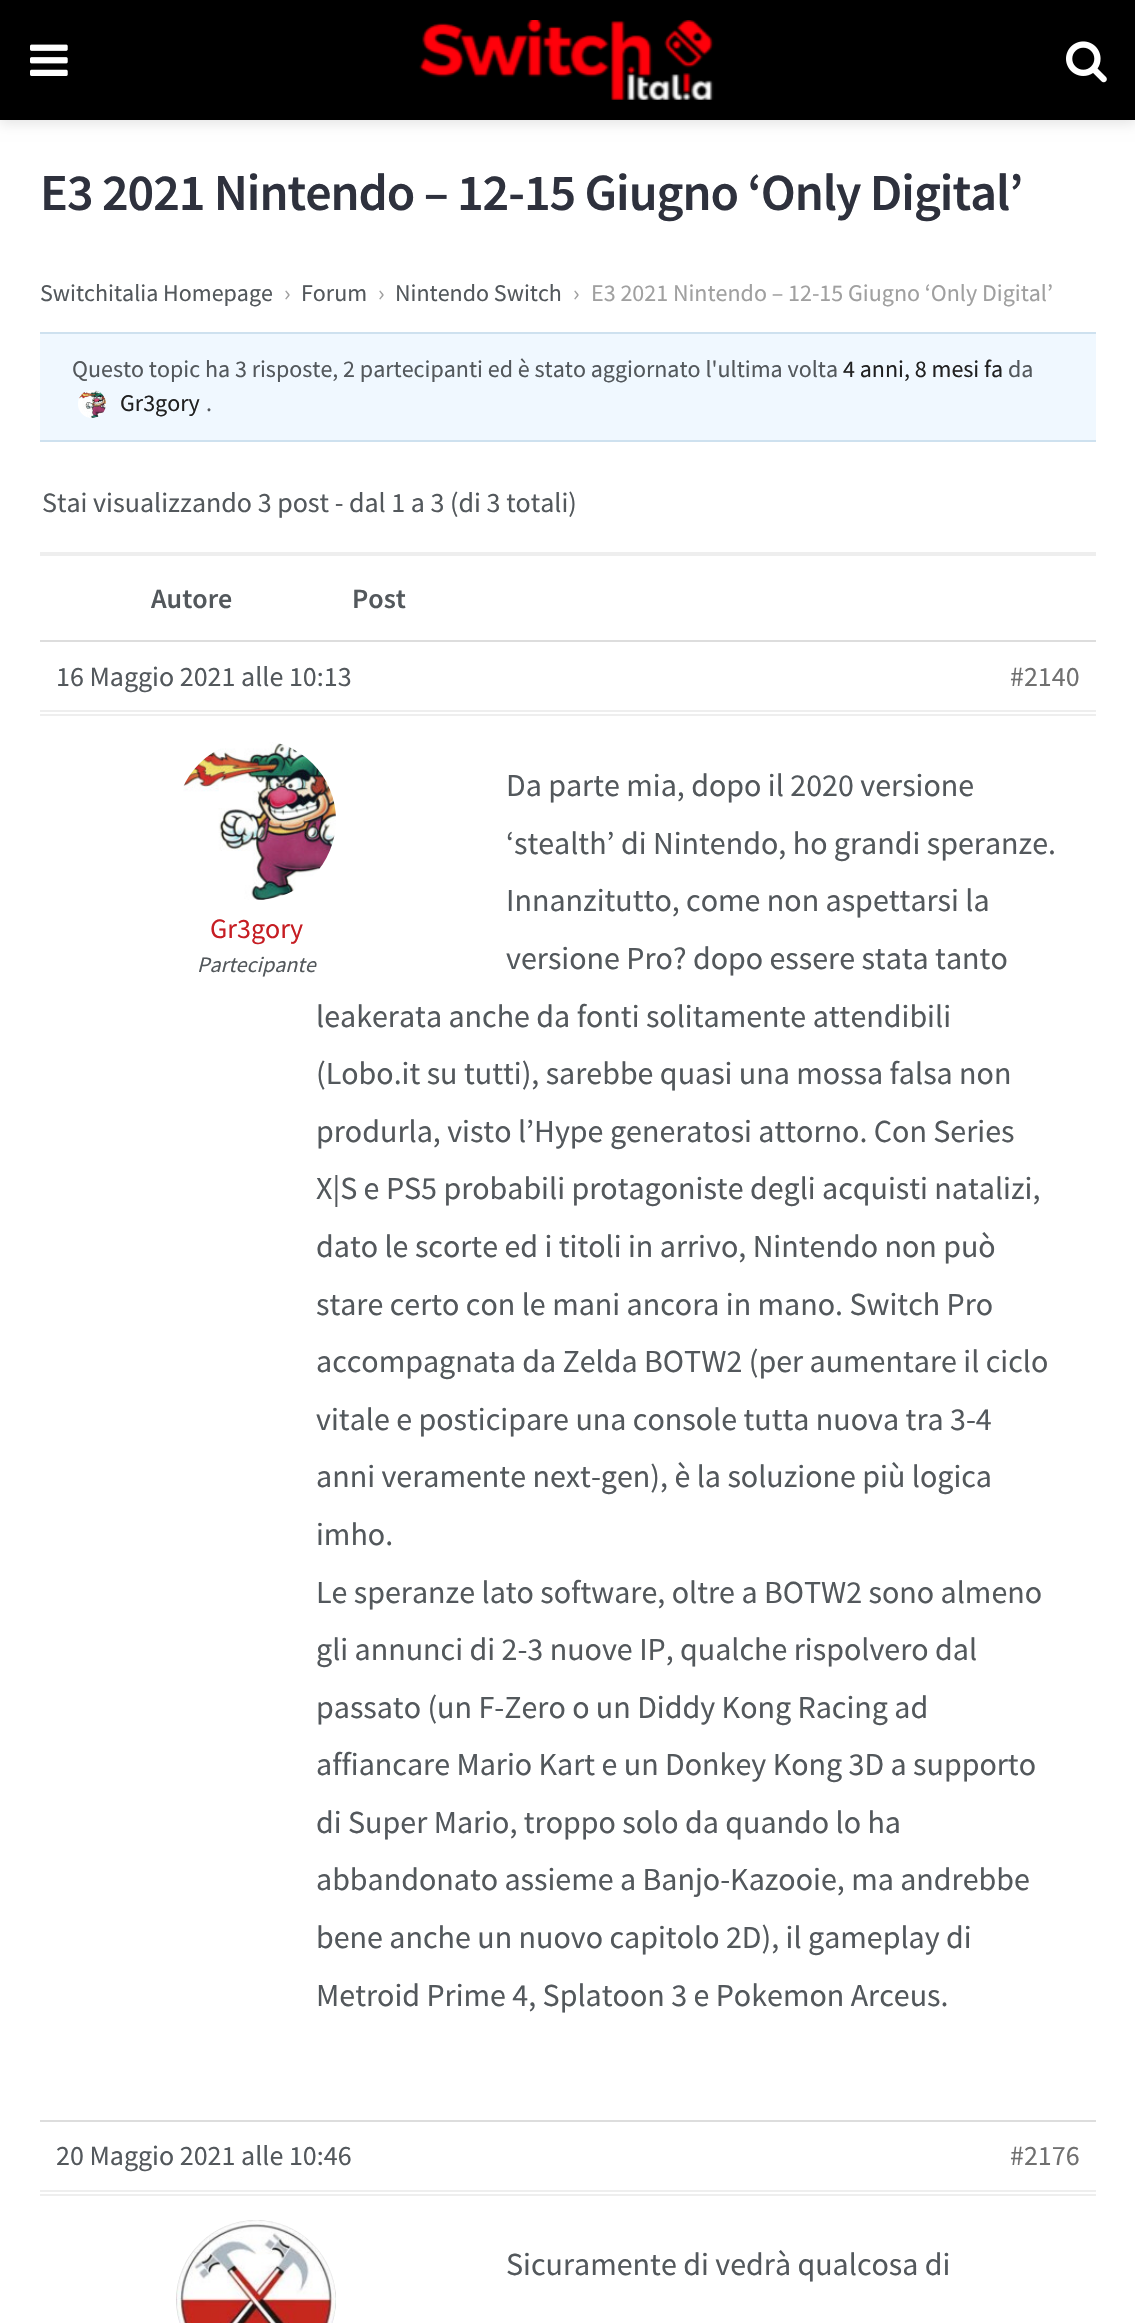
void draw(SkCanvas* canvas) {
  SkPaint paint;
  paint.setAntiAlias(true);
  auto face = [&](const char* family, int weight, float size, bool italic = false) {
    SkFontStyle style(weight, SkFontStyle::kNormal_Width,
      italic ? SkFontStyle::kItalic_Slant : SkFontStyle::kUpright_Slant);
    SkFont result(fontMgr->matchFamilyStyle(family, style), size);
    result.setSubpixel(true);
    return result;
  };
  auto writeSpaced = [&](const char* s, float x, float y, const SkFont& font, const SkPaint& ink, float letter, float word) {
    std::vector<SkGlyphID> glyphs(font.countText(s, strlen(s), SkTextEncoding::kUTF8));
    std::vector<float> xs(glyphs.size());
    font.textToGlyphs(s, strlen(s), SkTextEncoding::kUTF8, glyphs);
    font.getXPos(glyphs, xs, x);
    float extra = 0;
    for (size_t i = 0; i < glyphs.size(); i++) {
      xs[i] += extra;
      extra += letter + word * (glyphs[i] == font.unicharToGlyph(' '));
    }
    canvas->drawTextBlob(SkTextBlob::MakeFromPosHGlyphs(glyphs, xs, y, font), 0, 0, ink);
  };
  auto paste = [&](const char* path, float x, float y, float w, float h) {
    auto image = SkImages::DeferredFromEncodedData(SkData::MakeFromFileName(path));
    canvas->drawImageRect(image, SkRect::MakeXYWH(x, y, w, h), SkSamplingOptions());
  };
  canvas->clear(0xffffffff);
  paint.setColor(0x1a000000);
  paint.setMaskFilter(SkMaskFilter::MakeBlur(kNormal_SkBlurStyle, 6));
  canvas->drawRect(SkRect::MakeXYWH(0, 4, 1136, 120), paint);
  paint.setMaskFilter(nullptr);
  paint.setColor(0xff000000);
  canvas->drawRect(SkRect::MakeXYWH(0, 0, 1135, 120), paint);
  paste("img/1.png", 30, 44, 38, 32);
  paste("img/2.png", 419, 20, 295, 80);
  paste("img/3.png", 1066, 41, 41, 42);
  {
    const struct { float x, y, w, h; SkColor color; } items[] = {
      {40, 334, 1056, 106, 0xfff0f8ff},
      {40, 332, 1056, 2, 0xffcee1ef},
      {40, 440, 1056, 2, 0xffcee1ef},
    };
    for (auto [x, y, w, h, color] : items) {
      paint.setColor(color);
      canvas->drawRect(SkRect::MakeXYWH(x, y, w, h), paint);
    }
  }
  paste("img/4.png", 78, 390, 28, 28);
  {
    const struct { float x, y, w, h; SkColor color; } items[] = {
      {40, 552, 1056, 4, 0xffeeeeee},
      {40, 640, 1056, 2, 0xffdddddd},
      {40, 710, 1056, 2, 0xffeeeeee},
      {40, 714, 1056, 2, 0xffeeeeee},
    };
    for (auto [x, y, w, h, color] : items) {
      paint.setColor(color);
      canvas->drawRect(SkRect::MakeXYWH(x, y, w, h), paint);
    }
  }
  paste("img/5.png", 183, 742, 153, 158);
  {
    const struct { float x, y, w, h; SkColor color; } items[] = {
      {40, 2120, 1056, 2, 0xffdddddd},
      {40, 2190, 1056, 2, 0xffeeeeee},
      {40, 2194, 1056, 2, 0xffeeeeee},
    };
    for (auto [x, y, w, h, color] : items) {
      paint.setColor(color);
      canvas->drawRect(SkRect::MakeXYWH(x, y, w, h), paint);
    }
  }
  paste("img/6.png", 176, 2220, 160, 103);
  auto f0 = face("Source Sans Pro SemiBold", 600, 52);
  paint.setColor(0xff2e313d);
  writeSpaced("E3 2021 Nintendo – 12-15 Giugno ‘Only Digital’", 40, 210, f0, paint, -1.05f, 0);
  auto f1 = face("Source Sans Pro", 400, 24);
  paint.setColor(0xff53585c);
  canvas->drawString("Switchitalia Homepage", 40, 301, f1, paint);
  paint.setColor(0xffa0a0a0);
  canvas->drawString("›", 284, 301, f1, paint);
  paint.setColor(0xff53585c);
  canvas->drawString("Forum", 301, 301, f1, paint);
  paint.setColor(0xffa0a0a0);
  canvas->drawString("›", 378, 301, f1, paint);
  paint.setColor(0xff53585c);
  canvas->drawString("Nintendo Switch", 395, 301, f1, paint);
  paint.setColor(0xffa0a0a0);
  canvas->drawString("›", 573, 301, f1, paint);
  canvas->drawString("E3 2021 Nintendo – 12-15 Giugno ‘Only Digital’", 591, 301, f1, paint);
  paint.setColor(0xff53585c);
  canvas->drawString("Questo topic ha 3 risposte, 2 partecipanti ed è stato aggiornato l'ultima volta", 72, 377, f1, paint);
  paint.setColor(0xff212121);
  canvas->drawString("4 anni, 8 mesi fa", 843, 377, f1, paint);
  paint.setColor(0xff53585c);
  canvas->drawString("da", 1008, 377, f1, paint);
  paint.setColor(0xff212121);
  canvas->drawString("Gr3gory", 120, 411, f1, paint);
  paint.setColor(0xff53585c);
  canvas->drawString(".", 206, 411, f1, paint);
  auto f2 = face("Source Sans Pro", 400, 28);
  canvas->drawString("Stai visualizzando 3 post - dal 1 a 3 (di 3 totali)", 42, 512, f2, paint);
  auto f3 = face("Source Sans Pro SemiBold", 600, 28);
  canvas->drawString("Autore", 151, 608, f3, paint);
  canvas->drawString("Post", 352, 608, f3, paint);
  canvas->drawString("16 Maggio 2021 alle 10:13", 56, 686, f2, paint);
  paint.setColor(0xff707070);
  canvas->drawString("#2140", 1010, 686, f2, paint);
  paint.setColor(0xffc61d23);
  canvas->drawString("Gr3gory", 210, 938, f2, paint);
  auto f4 = face("Source Sans Pro", 400, 22, true);
  paint.setColor(0xff53585c);
  canvas->drawString("Partecipante", 197, 972, f4, paint);
  auto f5 = face("Source Sans Pro", 400, 32);
  {
    const struct { const char* s; float x, y; } items[] = {
      {"Da parte mia, dopo il 2020 versione", 506, 796},
      {"‘stealth’ di Nintendo, ho grandi speranze.", 506, 854},
      {"Innanzitutto, come non aspettarsi la", 506, 911},
      {"versione Pro? dopo essere stata tanto", 506, 969},
      {"leakerata anche da fonti solitamente attendibili", 316, 1027},
      {"(Lobo.it su tutti), sarebbe quasi una mossa falsa non", 316, 1084},
      {"produrla, visto l’Hype generatosi attorno. Con Series", 316, 1142},
      {"X|S e PS5 probabili protagoniste degli acquisti natalizi,", 316, 1199},
      {"dato le scorte ed i titoli in arrivo, Nintendo non può", 316, 1257},
      {"stare certo con le mani ancora in mano. Switch Pro", 316, 1315},
      {"accompagnata da Zelda BOTW2 (per aumentare il ciclo", 316, 1372},
      {"vitale e posticipare una console tutta nuova tra 3-4", 316, 1430},
      {"anni veramente next-gen), è la soluzione più logica", 316, 1487},
      {"imho.", 316, 1545},
      {"Le speranze lato software, oltre a BOTW2 sono almeno", 316, 1603},
      {"gli annunci di 2-3 nuove IP, qualche rispolvero dal", 316, 1660},
      {"passato (un F-Zero o un Diddy Kong Racing ad", 316, 1718},
      {"affiancare Mario Kart e un Donkey Kong 3D a supporto", 316, 1775},
      {"di Super Mario, troppo solo da quando lo ha", 316, 1833},
      {"abbandonato assieme a Banjo-Kazooie, ma andrebbe", 316, 1890},
      {"bene anche un nuovo capitolo 2D), il gameplay di", 316, 1948},
      {"Metroid Prime 4, Splatoon 3 e Pokemon Arceus.", 316, 2006},
    };
    for (auto [s, x, y] : items) {
      canvas->drawString(s, x, y, f5, paint);
    }
  }
  canvas->drawString("20 Maggio 2021 alle 10:46", 56, 2165, f2, paint);
  paint.setColor(0xff707070);
  canvas->drawString("#2176", 1010, 2165, f2, paint);
  paint.setColor(0xff53585c);
  canvas->drawString("Sicuramente di vedrà qualcosa di", 506, 2275, f5, paint);
}
